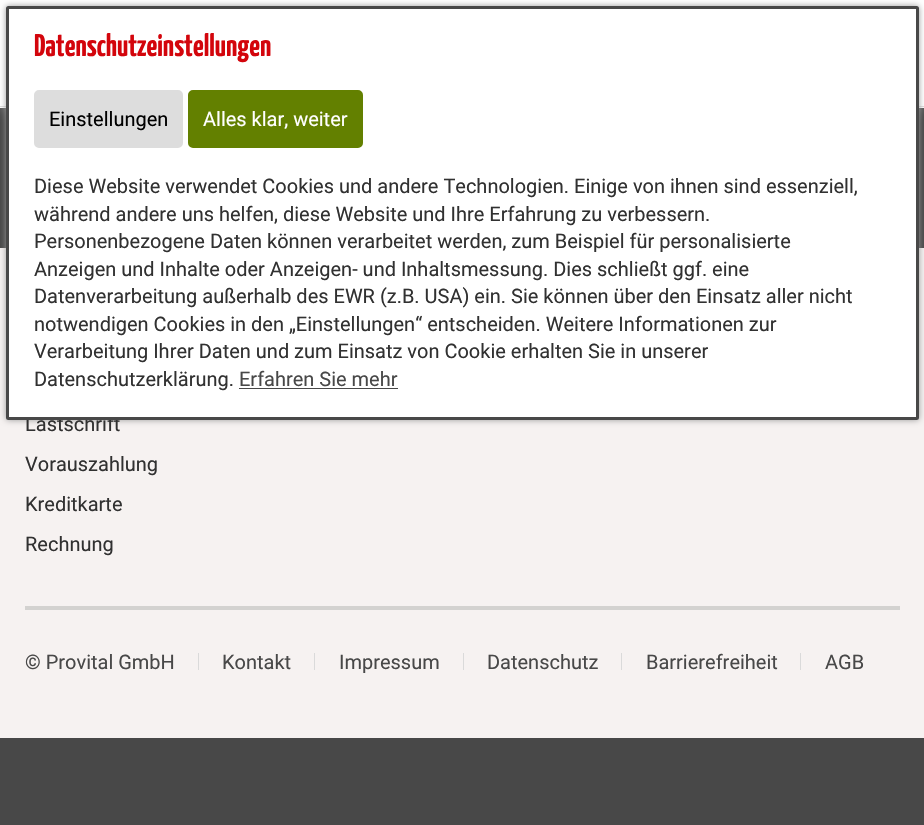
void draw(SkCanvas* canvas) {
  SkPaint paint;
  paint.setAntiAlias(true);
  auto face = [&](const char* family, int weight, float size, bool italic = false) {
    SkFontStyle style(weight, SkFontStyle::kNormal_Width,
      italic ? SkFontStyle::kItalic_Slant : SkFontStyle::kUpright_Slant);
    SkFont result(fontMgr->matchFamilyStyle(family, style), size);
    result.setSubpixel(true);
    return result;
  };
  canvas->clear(0xff484848);
  paint.setColor(0xff808080);
  paint.setMaskFilter(SkMaskFilter::MakeBlur(kNormal_SkBlurStyle, 6));
  canvas->drawRect(SkRect::MakeXYWH(0, 0, 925, 108), paint);
  paint.setMaskFilter(nullptr);
  {
    const struct { float x, y, w, h; SkColor color; } items[] = {
      {0, 0, 924, 108, 0xffffffff},
      {0, 106, 924, 1, 0xffdddddd},
      {0, 248, 924, 490, 0xfff6f2f1},
    };
    for (auto [x, y, w, h, color] : items) {
      paint.setColor(color);
      canvas->drawRect(SkRect::MakeXYWH(x, y, w, h), paint);
    }
  }
  paint.setColor(0xff999999);
  paint.setMaskFilter(SkMaskFilter::MakeBlur(kNormal_SkBlurStyle, 3));
  canvas->drawRoundRect(SkRect::MakeXYWH(6, 6, 913, 414), 2.5f, 2.5f, paint);
  paint.setMaskFilter(nullptr);
  {
    const struct { float x, y, w, h; SkColor color; } items[] = {
      {25, 606, 875, 4, 0xffd3d2d0},
      {198, 653, 1, 17, 0xffdadada},
      {314, 653, 1, 17, 0xffdadada},
      {463, 653, 1, 17, 0xffdadada},
      {621, 653, 1, 17, 0xffdadada},
      {800, 653, 1, 17, 0xffdadada},
    };
    for (auto [x, y, w, h, color] : items) {
      paint.setColor(color);
      canvas->drawRect(SkRect::MakeXYWH(x, y, w, h), paint);
    }
  }
  auto f0 = face("Roboto", 400, 20);
  paint.setColor(0xff313131);
  canvas->drawString("Lastschrift", 25, 431, f0, paint);
  paint.setColor(0xffffffff);
  canvas->drawRoundRect(SkRect::MakeXYWH(7.5f, 7.5f, 910, 411), 1, 1, paint);
  paint.setStroke(true);
  paint.setStrokeWidth(3);
  paint.setColor(0xff484848);
  canvas->drawRoundRect(SkRect::MakeXYWH(7.5f, 7.5f, 910, 411), 1, 1, paint);
  paint.setStroke(false);
  canvas->drawString("Erfahren Sie mehr", 239, 386, f0, paint);
  canvas->drawRect(SkRect::MakeXYWH(239, 388, 159, 1), paint);
  paint.setColor(0xff313131);
  {
    const struct { const char* s; float x, y; } items[] = {
      {"Datenschutzerklärung.", 34, 386},
      {"Verarbeitung Ihrer Daten und zum Einsatz von Cookie erhalten Sie in unserer", 34, 358},
      {"notwendigen Cookies in den „Einstellungen“ entscheiden. Weitere Informationen zur", 34, 331},
      {"Datenverarbeitung außerhalb des EWR (z.B. USA) ein. Sie können über den Einsatz aller nicht", 34, 303},
      {"Anzeigen und Inhalte oder Anzeigen- und Inhaltsmessung. Dies schließt ggf. eine", 34, 276},
      {"Personenbezogene Daten können verarbeitet werden, zum Beispiel für personalisierte", 34, 248},
      {"während andere uns helfen, diese Website und Ihre Erfahrung zu verbessern.", 34, 221},
      {"Diese Website verwendet Cookies und andere Technologien. Einige von ihnen sind essenziell,", 34, 193},
    };
    for (auto [s, x, y] : items) {
      canvas->drawString(s, x, y, f0, paint);
    }
  }
  paint.setColor(0xff638000);
  canvas->drawRoundRect(SkRect::MakeXYWH(189.5f, 91.5f, 172, 55), 3.5f, 3.5f, paint);
  paint.setStroke(true);
  canvas->drawRoundRect(SkRect::MakeXYWH(189.5f, 91.5f, 172, 55), 3.5f, 3.5f, paint);
  paint.setStroke(false);
  paint.setColor(0xffffffff);
  canvas->drawString("Alles klar, weiter", 203, 126, f0, paint);
  paint.setColor(0xffdddddd);
  canvas->drawRoundRect(SkRect::MakeXYWH(35.5f, 91.5f, 146, 55), 3.5f, 3.5f, paint);
  paint.setStroke(true);
  canvas->drawRoundRect(SkRect::MakeXYWH(35.5f, 91.5f, 146, 55), 3.5f, 3.5f, paint);
  paint.setStroke(false);
  paint.setColor(0xff000000);
  canvas->drawString("Einstellungen", 49, 126, f0, paint);
  auto f1 = face("Yanone Kaffeesatz", 700, 31.25f);
  paint.setColor(0xffd3050c);
  canvas->drawString("Datenschutzeinstellungen", 34, 56, f1, paint);
  paint.setColor(0xff313131);
  {
    const struct { const char* s; float x, y; } items[] = {
      {"Vorauszahlung", 25, 471},
      {"Kreditkarte", 25, 511},
      {"Rechnung", 25, 551},
    };
    for (auto [s, x, y] : items) {
      canvas->drawString(s, x, y, f0, paint);
    }
  }
  paint.setColor(0xff484848);
  {
    const struct { const char* s; float x, y; } items[] = {
      {"© Provital GmbH", 25, 669},
      {"Kontakt", 222, 669},
      {"Impressum", 339, 669},
      {"Datenschutz", 487, 669},
      {"Barrierefreiheit", 646, 669},
      {"AGB", 825, 669},
    };
    for (auto [s, x, y] : items) {
      canvas->drawString(s, x, y, f0, paint);
    }
  }
}
